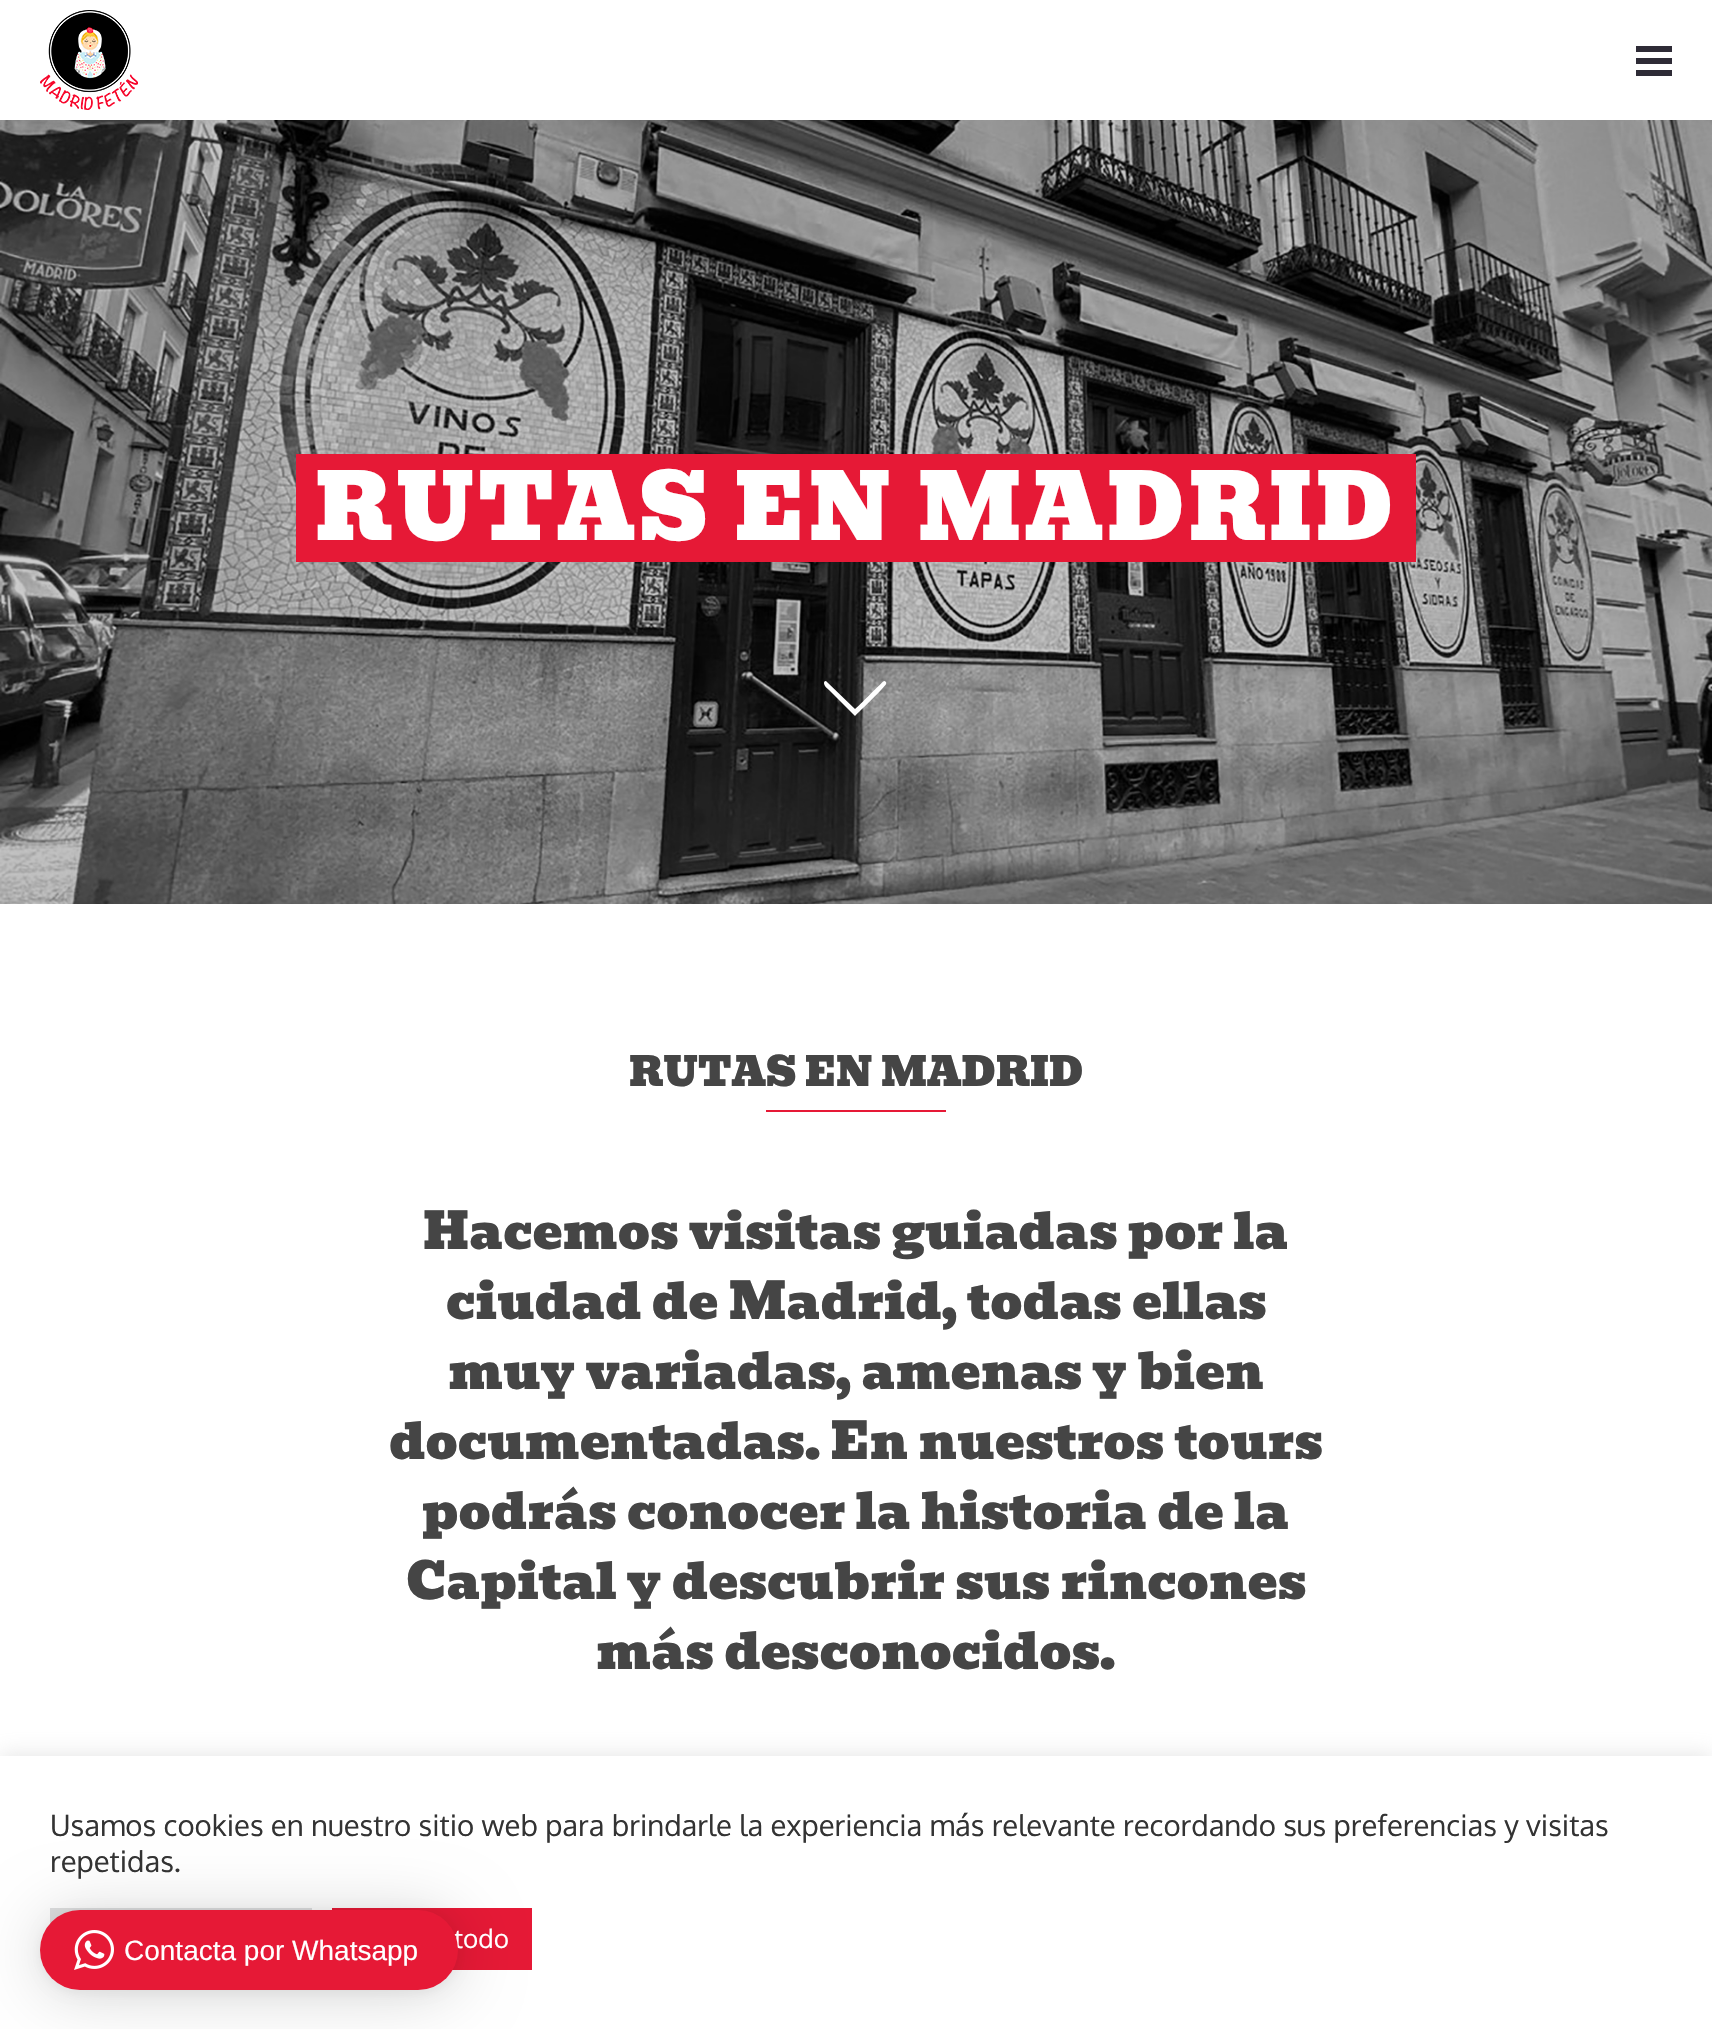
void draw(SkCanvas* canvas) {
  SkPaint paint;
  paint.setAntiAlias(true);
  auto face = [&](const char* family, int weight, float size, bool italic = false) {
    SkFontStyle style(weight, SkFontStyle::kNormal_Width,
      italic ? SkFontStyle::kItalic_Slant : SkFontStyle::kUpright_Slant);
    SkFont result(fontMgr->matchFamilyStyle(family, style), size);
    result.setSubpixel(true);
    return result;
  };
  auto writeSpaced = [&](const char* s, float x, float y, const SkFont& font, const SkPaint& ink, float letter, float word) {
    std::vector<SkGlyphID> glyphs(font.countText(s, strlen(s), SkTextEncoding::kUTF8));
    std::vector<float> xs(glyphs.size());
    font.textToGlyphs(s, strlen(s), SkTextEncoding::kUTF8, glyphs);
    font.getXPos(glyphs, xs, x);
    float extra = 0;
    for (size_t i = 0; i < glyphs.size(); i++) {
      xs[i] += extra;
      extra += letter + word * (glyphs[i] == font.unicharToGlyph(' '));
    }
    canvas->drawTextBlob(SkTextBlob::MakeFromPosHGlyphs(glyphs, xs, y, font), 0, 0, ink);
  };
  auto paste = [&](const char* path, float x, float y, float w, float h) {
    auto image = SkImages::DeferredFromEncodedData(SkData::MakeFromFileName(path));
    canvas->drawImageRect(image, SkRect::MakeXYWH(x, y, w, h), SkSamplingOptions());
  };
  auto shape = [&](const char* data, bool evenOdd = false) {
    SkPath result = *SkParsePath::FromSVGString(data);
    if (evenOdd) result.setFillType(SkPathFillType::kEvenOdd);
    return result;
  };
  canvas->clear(0xffffffff);
  paste("img/1.png", 40, 10, 98, 100);
  {
    const struct { float x, y, w, h; SkColor color; } items[] = {
      {1636, 46, 36, 6, 0xff2e2b36},
      {1636, 58, 36, 6, 0xff2e2b36},
      {1636, 70, 36, 6, 0xff2e2b36},
    };
    for (auto [x, y, w, h, color] : items) {
      paint.setColor(color);
      canvas->drawRect(SkRect::MakeXYWH(x, y, w, h), paint);
    }
  }
  paste("img/2.png", 0, 120, 1712, 784);
  paint.setColor(0xffe61936);
  canvas->drawRect(SkRect::MakeXYWH(296, 454, 1120, 108), paint);
  paint.setColor(0xffffffff);
  canvas->drawPath(shape("M824 683C824 681 826 680 827 682L855 709C859 706 882 682 884 681C885 681 887 682 886 684C886 686 859 712 855 716L829 690C827 688 824 686 824 683Z"), paint);
  paint.setColor(0xffe61936);
  canvas->drawRect(SkRect::MakeXYWH(766, 1110, 180, 2), paint);
  paint.setColor(0x4dacabab);
  paint.setMaskFilter(SkMaskFilter::MakeBlur(kNormal_SkBlurStyle, 10));
  canvas->drawRect(SkRect::MakeXYWH(0, 1754, 1712, 274), paint);
  paint.setMaskFilter(nullptr);
  {
    const struct { float x, y, w, h; SkColor color; } items[] = {
      {0, 1756, 1712, 273, 0xffffffff},
      {50, 1908, 262, 16, 0xffdedfe0},
      {332, 1908, 200, 62, 0xffe61936},
    };
    for (auto [x, y, w, h, color] : items) {
      paint.setColor(color);
      canvas->drawRect(SkRect::MakeXYWH(x, y, w, h), paint);
    }
  }
  paint.setColor(0x29000000);
  paint.setMaskFilter(SkMaskFilter::MakeBlur(kNormal_SkBlurStyle, 32));
  canvas->drawRoundRect(SkRect::MakeXYWH(40, 1914, 418, 80), 40, 40, paint);
  paint.setMaskFilter(nullptr);
  paint.setColor(0x0f000000);
  paint.setMaskFilter(SkMaskFilter::MakeBlur(kNormal_SkBlurStyle, 6));
  canvas->drawRoundRect(SkRect::MakeXYWH(40, 1912, 418, 80), 40, 40, paint);
  paint.setMaskFilter(nullptr);
  auto f0 = face("Bevan", 400, 90);
  paint.setColor(0xffffffff);
  writeSpaced("RUTAS EN MADRID", 315, 540, f0, paint, 4, 0);
  auto f1 = face("Bevan", 400, 40);
  paint.setColor(0xff454545);
  canvas->drawString("RUTAS EN MADRID", 629, 1086, f1, paint);
  auto f2 = face("Bevan", 400, 50);
  {
    const struct { const char* s; float x, y; } items[] = {
      {"Hacemos visitas guiadas por la", 423, 1249},
      {"ciudad de Madrid, todas ellas", 446, 1319},
      {"muy variadas, amenas y bien", 448, 1389},
      {"documentadas. En nuestros tours", 389, 1459},
      {"podrás conocer la historia de la", 422, 1529},
      {"Capital y descubrir sus rincones", 406, 1599},
      {"más desconocidos.", 596, 1669},
    };
    for (auto [s, x, y] : items) {
      canvas->drawString(s, x, y, f2, paint);
    }
  }
  auto f3 = face("Oxygen", 400, 29.33f);
  paint.setColor(0xff333333);
  canvas->drawString("Usamos cookies en nuestro sitio web para brindarle la experiencia más relevante recordando sus preferencias y visitas", 50, 1836, f3, paint);
  canvas->drawString("repetidas.", 50, 1872, f3, paint);
  auto f4 = face("Oxygen", 400, 26);
  paint.setColor(0xffffffff);
  canvas->drawString("todo", 454, 1948, f4, paint);
  paint.setColor(0xffe61936);
  canvas->drawRoundRect(SkRect::MakeXYWH(40, 1910, 418, 80), 40, 40, paint);
  paste("img/3.png", 74, 1930, 40, 40);
  auto f5 = face("Liberation Sans", 400, 28);
  paint.setColor(0xffffffff);
  canvas->drawString("Contacta por Whatsapp", 124, 1960, f5, paint);
}
